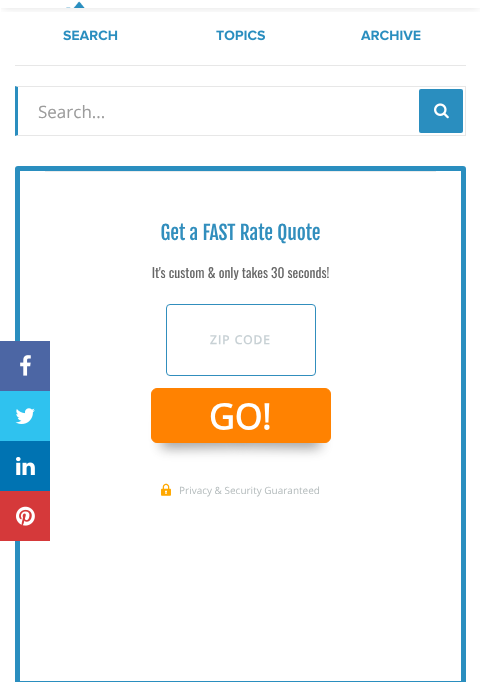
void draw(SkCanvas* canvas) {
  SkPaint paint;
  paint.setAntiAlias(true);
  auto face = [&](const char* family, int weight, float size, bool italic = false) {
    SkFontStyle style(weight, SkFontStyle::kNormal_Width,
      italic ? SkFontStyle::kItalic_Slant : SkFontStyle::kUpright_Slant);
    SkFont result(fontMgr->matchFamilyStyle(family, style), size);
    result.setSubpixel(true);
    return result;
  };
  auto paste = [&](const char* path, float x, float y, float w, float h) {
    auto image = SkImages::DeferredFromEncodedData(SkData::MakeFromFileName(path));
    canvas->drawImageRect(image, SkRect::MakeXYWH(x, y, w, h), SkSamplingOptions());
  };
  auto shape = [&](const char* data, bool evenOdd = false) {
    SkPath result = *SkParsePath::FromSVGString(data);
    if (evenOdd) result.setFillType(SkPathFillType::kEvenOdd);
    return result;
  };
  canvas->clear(0xffffffff);
  canvas->save();
  canvas->clipRect(SkRect::MakeXYWH(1, 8, 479, 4));
  paint.setColor(0x80000000);
  paint.setMaskFilter(SkMaskFilter::MakeBlur(kNormal_SkBlurStyle, 5));
  canvas->drawRect(SkRect::MakeXYWH(3, 3, 475, 2), paint);
  paint.setMaskFilter(nullptr);
  canvas->restore();
  paste("img/1.png", 66, 1, 19, 7);
  paint.setColor(0xffe7e7e7);
  canvas->drawRect(SkRect::MakeXYWH(15, 65, 451, 1), paint);
  paste("img/2.png", 63, 30, 55, 11);
  paste("img/3.png", 216, 30, 49, 11);
  paste("img/4.png", 361, 30, 60, 11);
  canvas->drawPath(shape("M15 86H466L465 87H18Z"), paint);
  canvas->drawRect(SkRect::MakeXYWH(465, 86, 1, 50), paint);
  canvas->drawPath(shape("M466 136H15L18 135H465Z"), paint);
  paint.setColor(0xff2a8ebf);
  canvas->drawPath(shape("M15 136V86L18 87V135Z"), paint);
  canvas->drawRoundRect(SkRect::MakeXYWH(419, 89, 44, 44), 2, 2, paint);
  paste("img/5.png", 434, 103, 15, 16);
  paint.setStroke(true);
  paint.setStrokeWidth(5);
  canvas->drawRoundRect(SkRect::MakeXYWH(17.5f, 168.5f, 446, 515), 0.5f, 0.5f, paint);
  paste("img/6.png", 45, 171, 391, 326);
  paint.setStroke(false);
  paint.setColor(0xff4c66a4);
  canvas->drawRect(SkRect::MakeXYWH(0, 341, 50, 50), paint);
  paste("img/7.png", 20, 355, 11, 21);
  paint.setColor(0xff2fc2ef);
  canvas->drawRect(SkRect::MakeXYWH(0, 391, 50, 50), paint);
  paste("img/8.png", 15, 408, 20, 16);
  paint.setColor(0xff0073b2);
  canvas->drawRect(SkRect::MakeXYWH(0, 441, 50, 50), paint);
  paste("img/9.png", 16, 457, 19, 18);
  paint.setColor(0xffd5393a);
  canvas->drawRect(SkRect::MakeXYWH(0, 491, 50, 50), paint);
  paste("img/10.png", 16, 506, 19, 20);
  auto f0 = face("Open Sans", 400, 17);
  paint.setColor(0xff9c9c9c);
  canvas->drawString("Search...", 38, 118, f0, paint);
}
